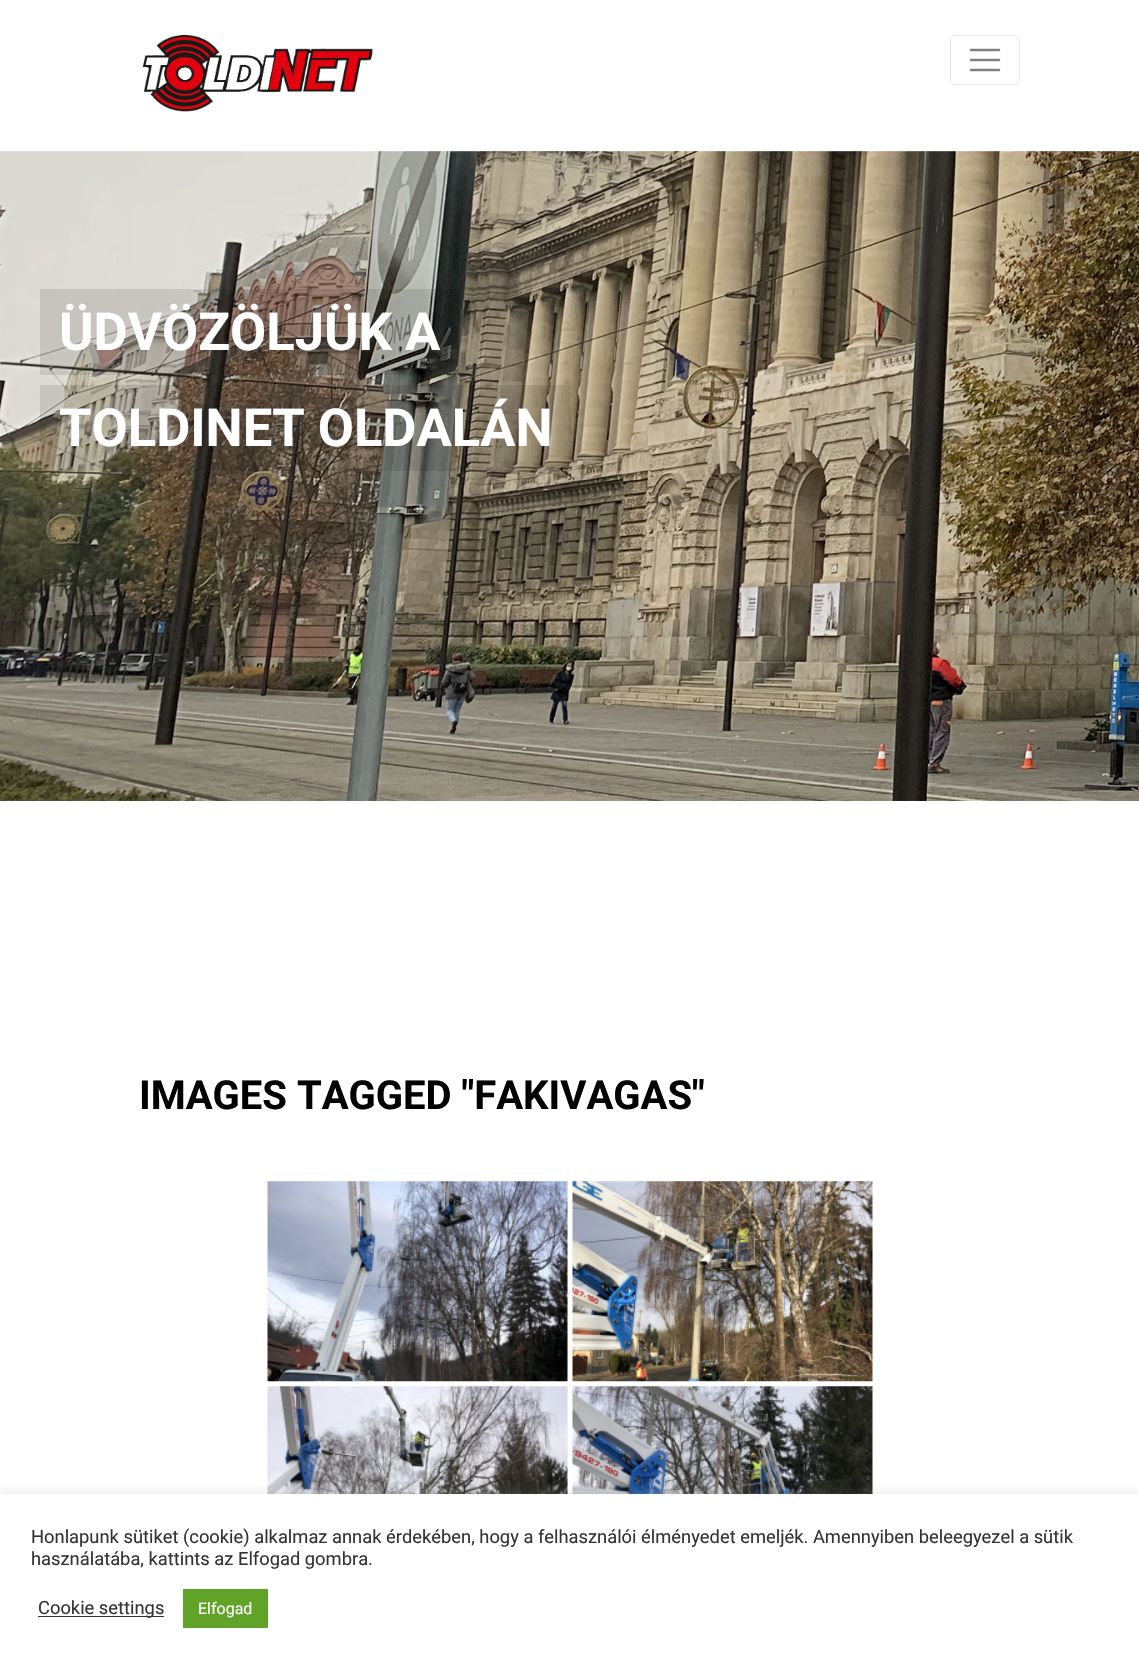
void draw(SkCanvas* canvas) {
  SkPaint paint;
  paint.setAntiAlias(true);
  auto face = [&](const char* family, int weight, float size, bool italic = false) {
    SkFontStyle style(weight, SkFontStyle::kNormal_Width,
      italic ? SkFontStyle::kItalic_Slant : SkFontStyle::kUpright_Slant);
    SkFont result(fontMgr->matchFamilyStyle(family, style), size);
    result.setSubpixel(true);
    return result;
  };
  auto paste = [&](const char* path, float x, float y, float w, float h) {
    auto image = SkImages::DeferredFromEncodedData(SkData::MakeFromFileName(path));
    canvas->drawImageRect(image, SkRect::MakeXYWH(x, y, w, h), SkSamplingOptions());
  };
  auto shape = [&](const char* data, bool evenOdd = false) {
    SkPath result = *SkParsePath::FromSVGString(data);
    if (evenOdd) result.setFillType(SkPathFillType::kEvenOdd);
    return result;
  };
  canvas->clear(0xffffffff);
  paste("img/1.png", 142, 34, 231, 78);
  paint.setStroke(true);
  paint.setStrokeWidth(1);
  paint.setColor(0xffe6e6e6);
  canvas->drawRoundRect(SkRect::MakeXYWH(950.5f, 35.5f, 69, 49), 4.5f, 4.5f, paint);
  paint.setStrokeWidth(2.5f);
  paint.setStrokeCap(SkPaint::kRound_Cap);
  paint.setColor(0xff808080);
  canvas->drawPath(shape("M971 50H999M971 60H999M971 70H999"), paint);
  paste("img/2.png", 0, 151, 1139, 650);
  paint.setStroke(false);
  paint.setColor(0x1a000000);
  canvas->drawRect(SkRect::MakeXYWH(40, 289, 419, 86), paint);
  canvas->drawRect(SkRect::MakeXYWH(40, 385, 531, 86), paint);
  paste("img/3.png", 267, 1181, 301, 201);
  paste("img/4.png", 572, 1181, 301, 201);
  paste("img/5.png", 267, 1386, 301, 108);
  paste("img/6.png", 572, 1386, 301, 108);
  paint.setColor(0x4dacabab);
  paint.setMaskFilter(SkMaskFilter::MakeBlur(kNormal_SkBlurStyle, 6));
  canvas->drawRect(SkRect::MakeXYWH(0, 1493, 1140, 171), paint);
  paint.setMaskFilter(nullptr);
  {
    const struct { float x, y, w, h; SkColor color; } items[] = {
      {0, 1494, 1139, 170, 0xffffffff},
      {38, 1616, 126, 1, 0xff333333},
      {183, 1589, 85, 39, 0xff61a229},
    };
    for (auto [x, y, w, h, color] : items) {
      paint.setColor(color);
      canvas->drawRect(SkRect::MakeXYWH(x, y, w, h), paint);
    }
  }
  auto f0 = face("Roboto", 700, 52.5f);
  paint.setColor(0xffffffff);
  canvas->drawString("ÜDVÖZÖLJÜK A", 59, 350, f0, paint);
  canvas->drawString("TOLDINET OLDALÁN", 59, 446, f0, paint);
  auto f1 = face("Roboto", 700, 40);
  paint.setColor(0xff000000);
  canvas->drawString("IMAGES TAGGED \"FAKIVAGAS\"", 139, 1109, f1, paint);
  auto f2 = face("Roboto", 400, 18.33f);
  paint.setColor(0xff333333);
  {
    const struct { const char* s; float x, y; } items[] = {
      {"Honlapunk sütiket (cookie) alkalmaz annak érdekében, hogy a felhasználói élményedet emeljék. Amennyiben beleegyezel a sütik", 31, 1543},
      {"használatába, kattints az Elfogad gombra.", 31, 1565},
      {"Cookie settings", 38, 1614},
    };
    for (auto [s, x, y] : items) {
      canvas->drawString(s, x, y, f2, paint);
    }
  }
  auto f3 = face("Roboto", 400, 16);
  paint.setColor(0xffffffff);
  canvas->drawString("Elfogad", 198, 1614, f3, paint);
}
